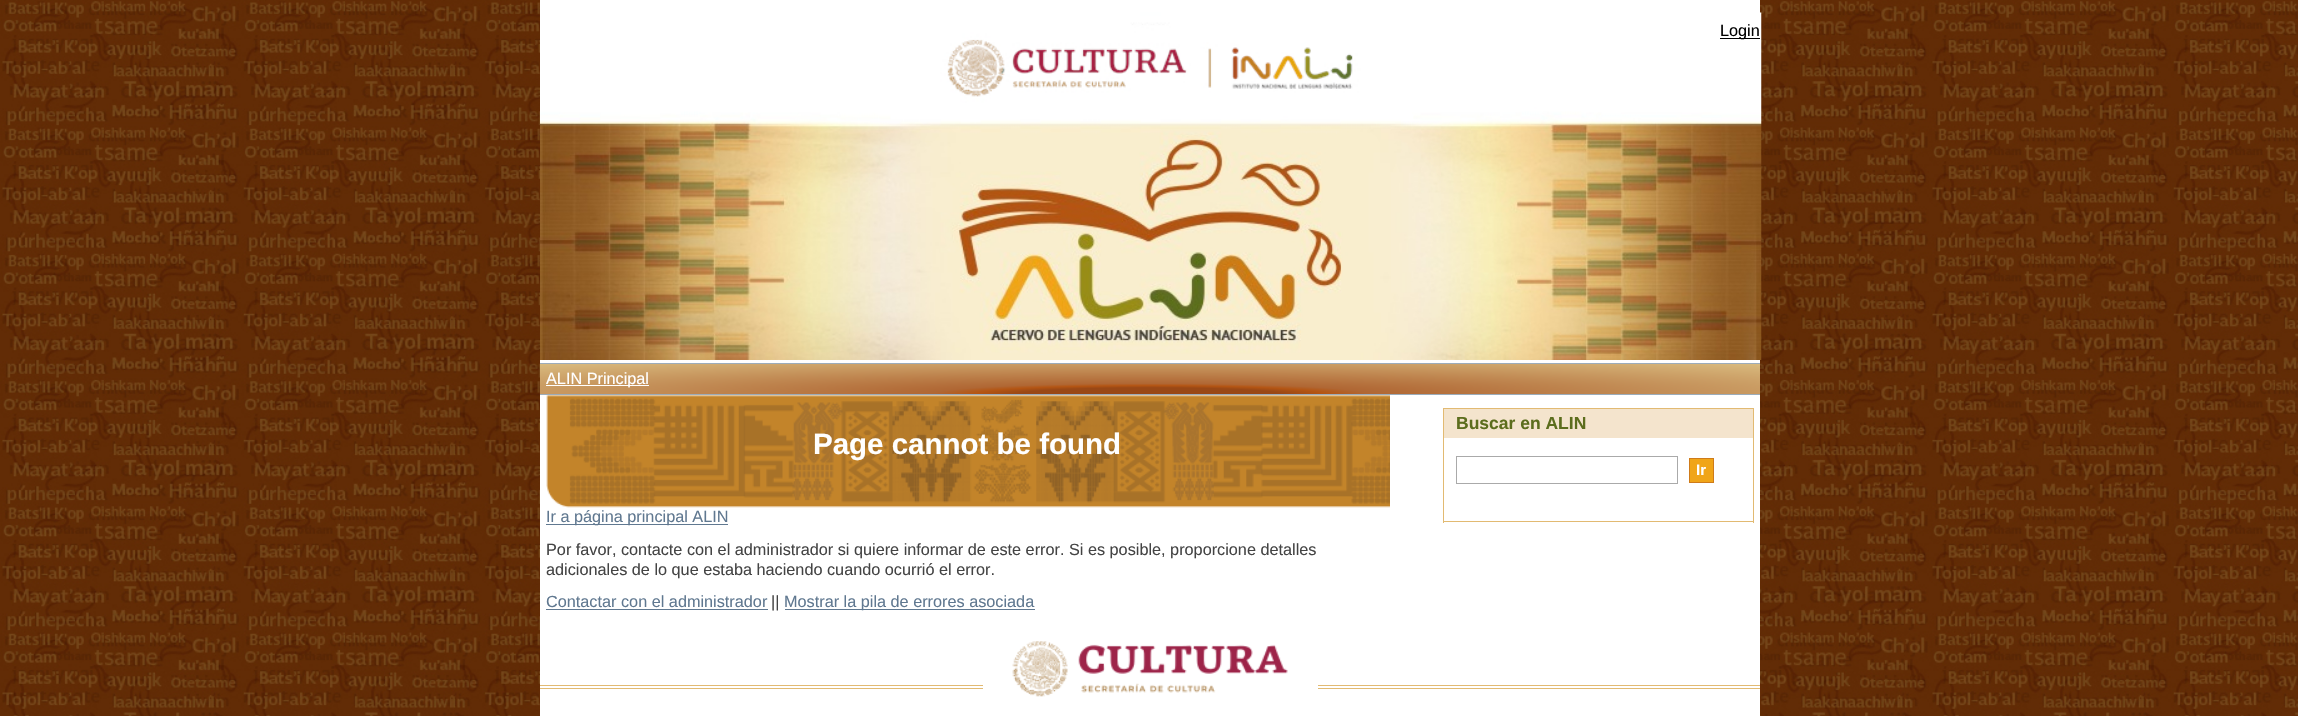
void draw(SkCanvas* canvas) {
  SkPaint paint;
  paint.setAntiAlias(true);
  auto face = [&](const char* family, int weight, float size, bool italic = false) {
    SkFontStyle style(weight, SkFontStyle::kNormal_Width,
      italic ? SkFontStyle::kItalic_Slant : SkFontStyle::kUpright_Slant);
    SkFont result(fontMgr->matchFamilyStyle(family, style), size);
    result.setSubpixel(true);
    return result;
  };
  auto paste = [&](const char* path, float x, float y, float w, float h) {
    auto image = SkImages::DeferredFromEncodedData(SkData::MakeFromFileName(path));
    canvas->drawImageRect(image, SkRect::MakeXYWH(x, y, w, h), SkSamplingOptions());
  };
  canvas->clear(0xffffffff);
  paste("img/1.png", 0, 0, 2298, 716);
  paint.setColor(0xffffffff);
  canvas->drawRect(SkRect::MakeXYWH(540, 0, 1220, 363), paint);
  paste("img/2.png", 540, 12, 1222, 348);
  paint.setColor(0xff000000);
  canvas->drawRect(SkRect::MakeXYWH(1720, 38, 40, 1), paint);
  {
    const SkColor colors[] = {0xff994816, 0xffb45513, 0xffb06734, 0xffd9bb7f};
    const float stops[] = {0.15f, 0.2f, 0.25f, 1};
    SkMatrix m = SkMatrix::Translate(1150, 394).preScale(863, 42);
    paint.setShader(SkGradientShader::MakeRadial({0, 0}, 1, colors, stops, 4, SkTileMode::kClamp, 0, &m));
    paint.setAlpha(255);
  }
  canvas->drawRect(SkRect::MakeXYWH(540, 364, 1220, 30), paint);
  paint.setShader(nullptr);
  {
    const struct { float x, y, w, h; SkColor color; } items[] = {
      {540, 363, 1220, 1, 0xff9cacba},
      {540, 394, 1220, 1, 0xff9cacba},
      {546, 385, 103, 1, 0xffffffff},
      {540, 395, 1220, 321, 0xffffffff},
    };
    for (auto [x, y, w, h, color] : items) {
      paint.setColor(color);
      canvas->drawRect(SkRect::MakeXYWH(x, y, w, h), paint);
    }
  }
  paste("img/3.png", 546, 395, 844, 113);
  {
    const struct { float x, y, w, h; SkColor color; } items[] = {
      {546, 524, 182, 1, 0xff607890},
      {546, 609, 222, 1, 0xff607890},
      {785, 609, 250, 1, 0xff607890},
      {1444, 409, 309, 29, 0xfff4e4cd},
      {1443, 408, 311, 1, 0xffe2ba72},
      {1753, 408, 1, 115, 0xffe2ba72},
      {1443, 408, 1, 30, 0xffe2ba72},
      {1443, 521, 311, 1, 0xffe2ba72},
      {1443, 438, 1, 85, 0xffe2ba72},
    };
    for (auto [x, y, w, h, color] : items) {
      paint.setColor(color);
      canvas->drawRect(SkRect::MakeXYWH(x, y, w, h), paint);
    }
  }
  paint.setStroke(true);
  paint.setStrokeWidth(1);
  paint.setColor(0xffaaaaaa);
  canvas->drawRect(SkRect::MakeXYWH(1456.5f, 456.5f, 221, 27), paint);
  paint.setStroke(false);
  paint.setColor(0xfff0a518);
  canvas->drawRect(SkRect::MakeXYWH(1689.5f, 458.5f, 24, 24), paint);
  paint.setStroke(true);
  paint.setColor(0xffcf7b19);
  canvas->drawRect(SkRect::MakeXYWH(1689.5f, 458.5f, 24, 24), paint);
  paint.setStroke(false);
  paint.setColor(0xffe2ba72);
  canvas->drawRect(SkRect::MakeXYWH(540, 685, 443, 1), paint);
  canvas->drawRect(SkRect::MakeXYWH(540, 688, 443, 1), paint);
  paste("img/4.png", 1012, 641, 276, 56);
  canvas->drawRect(SkRect::MakeXYWH(1318, 685, 442, 1), paint);
  canvas->drawRect(SkRect::MakeXYWH(1318, 688, 442, 1), paint);
  auto f0 = face("Liberation Sans", 400, 16.25f);
  paint.setColor(0xff000000);
  canvas->drawString("Login", 1720, 36, f0, paint);
  paint.setColor(0xffffffff);
  canvas->drawString("ALIN Principal", 546, 384, f0, paint);
  auto f1 = face("Liberation Sans", 700, 29.5f);
  canvas->drawString("Page cannot be found", 813, 454, f1, paint);
  paint.setColor(0xff607890);
  canvas->drawString("Ir a página principal ALIN", 546, 522, f0, paint);
  paint.setColor(0xff444444);
  canvas->drawString("Por favor, contacte con el administrador si quiere informar de este error. Si es posible, proporcione detalles", 546, 555, f0, paint);
  canvas->drawString("adicionales de lo que estaba haciendo cuando ocurrió el error.", 546, 575, f0, paint);
  paint.setColor(0xff607890);
  canvas->drawString("Contactar con el administrador", 546, 607, f0, paint);
  paint.setColor(0xff444444);
  canvas->drawString("||", 771, 607, f0, paint);
  paint.setColor(0xff607890);
  canvas->drawString("Mostrar la pila de errores asociada", 784, 607, f0, paint);
  auto f2 = face("Liberation Sans", 700, 17.5f);
  paint.setColor(0xff5c6d1d);
  canvas->drawString("Buscar en ALIN", 1456, 429, f2, paint);
  auto f3 = face("Liberation Sans", 700, 15);
  paint.setColor(0xffffffff);
  canvas->drawString("Ir", 1696, 475, f3, paint);
}
